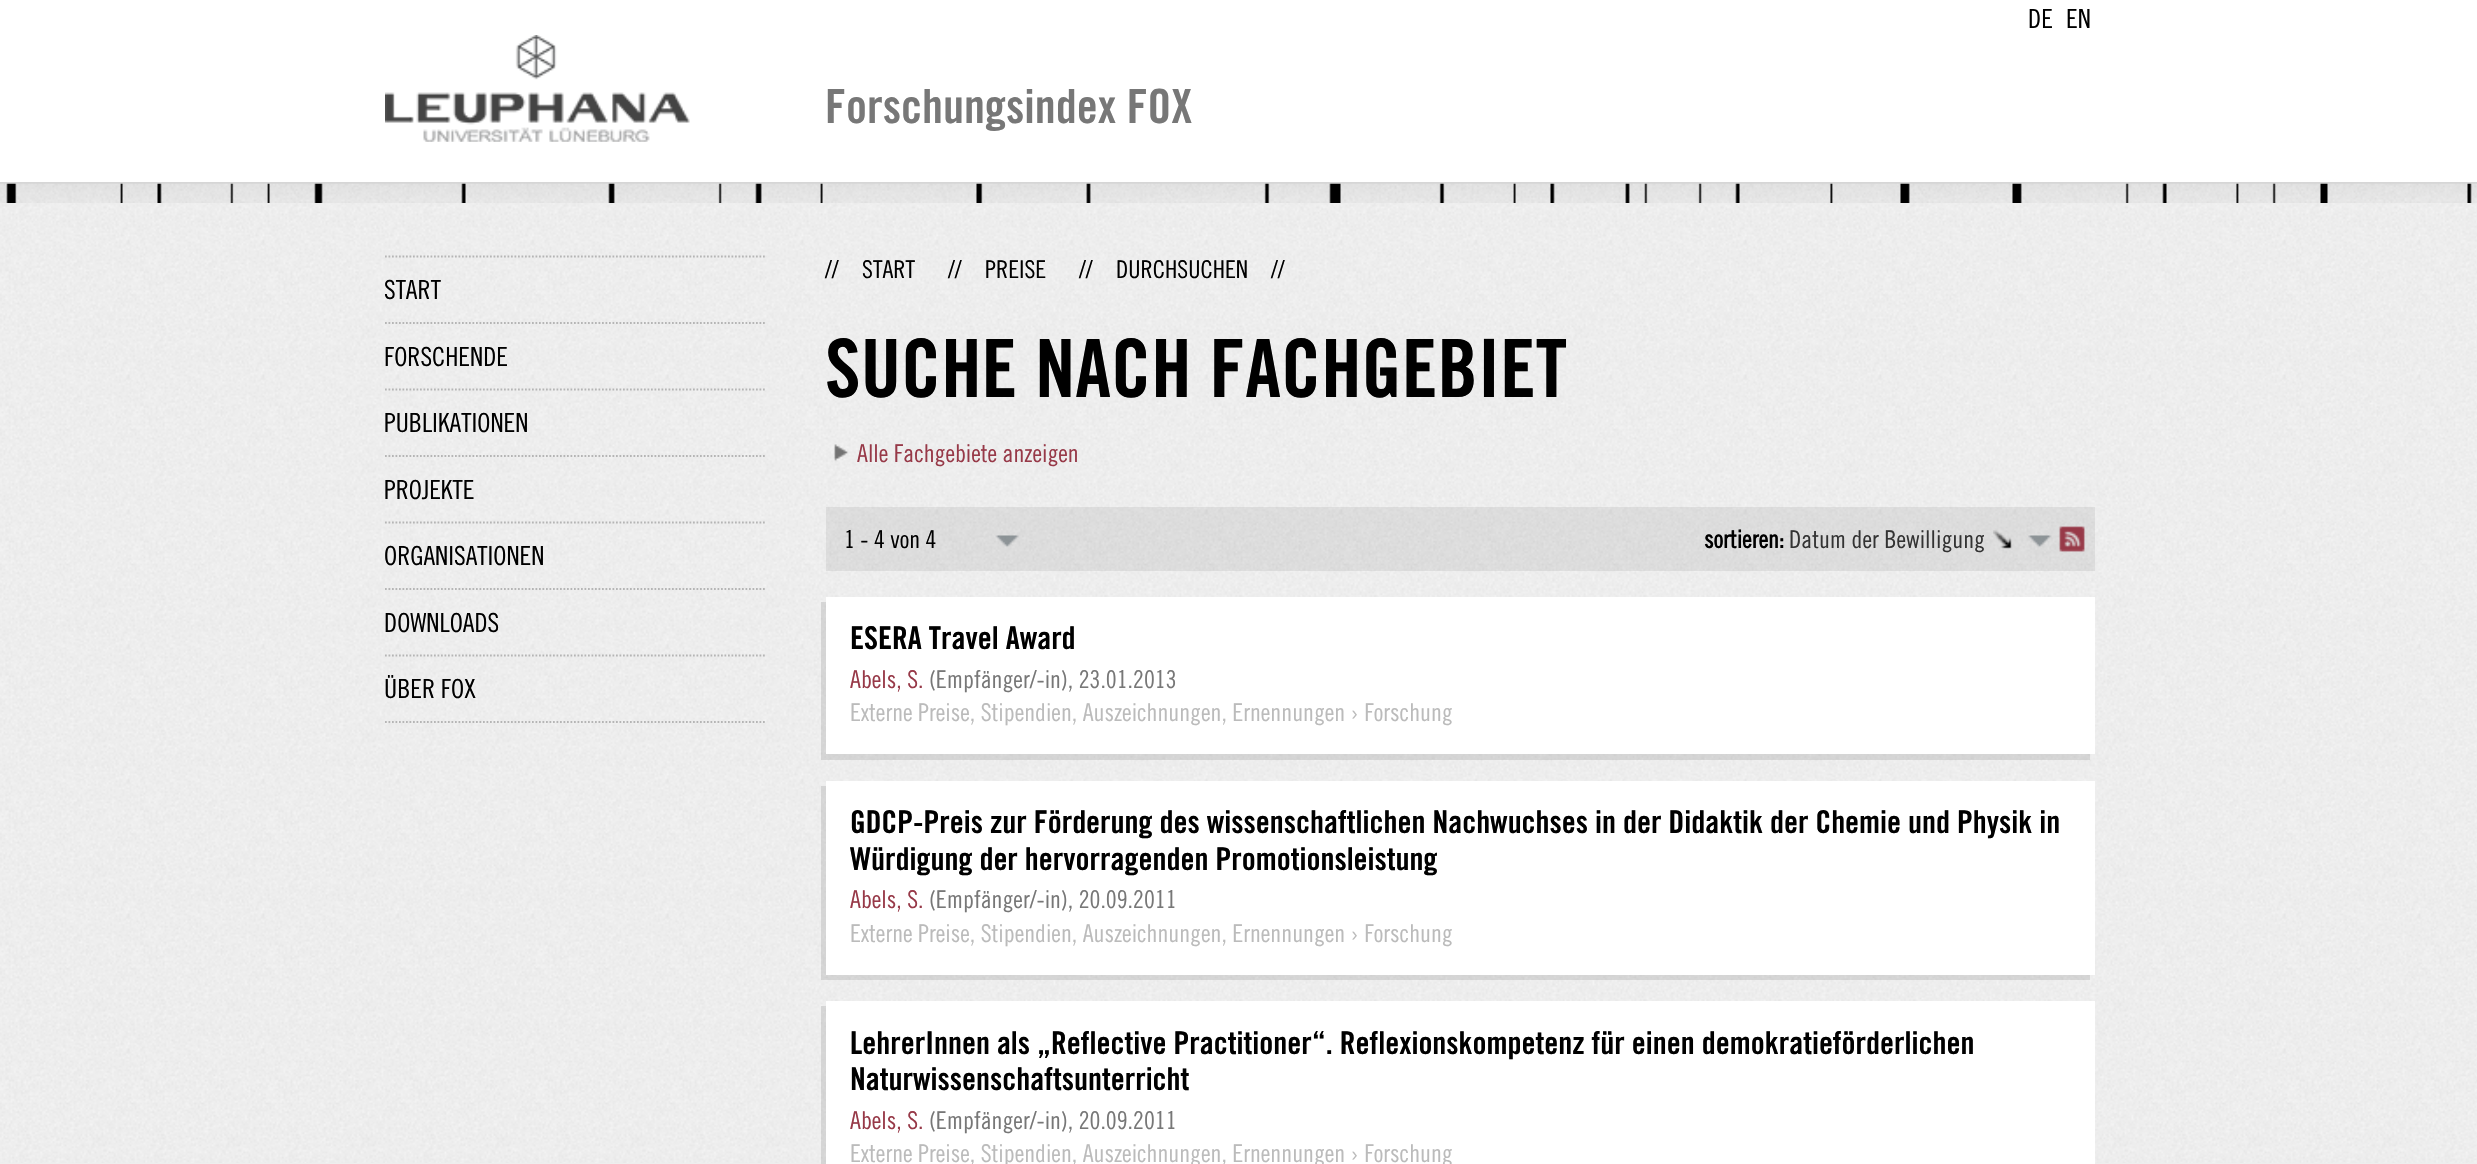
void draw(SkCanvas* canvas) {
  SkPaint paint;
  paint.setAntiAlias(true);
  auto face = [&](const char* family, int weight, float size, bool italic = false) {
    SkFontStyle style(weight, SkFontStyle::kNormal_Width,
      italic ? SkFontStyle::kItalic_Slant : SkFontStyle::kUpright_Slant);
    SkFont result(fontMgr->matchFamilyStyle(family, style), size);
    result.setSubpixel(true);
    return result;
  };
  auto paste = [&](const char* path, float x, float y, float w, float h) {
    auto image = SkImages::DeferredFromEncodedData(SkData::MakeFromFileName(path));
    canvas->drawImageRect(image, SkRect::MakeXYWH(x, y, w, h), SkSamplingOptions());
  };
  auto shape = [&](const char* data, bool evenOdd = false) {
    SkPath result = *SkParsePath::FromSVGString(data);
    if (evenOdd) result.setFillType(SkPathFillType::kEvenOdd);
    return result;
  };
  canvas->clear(0xffeeeeee);
  paste("img/1.png", 0, 203, 2477, 960);
  paint.setColor(0xffffffff);
  canvas->drawRect(SkRect::MakeXYWH(0, 0, 2477, 182), paint);
  paint.setColor(0xffd6d6d6);
  canvas->drawRect(SkRect::MakeXYWH(0, 182, 2477, 2), paint);
  paste("img/2.png", 385, 35, 305, 107);
  paste("img/3.png", 0, 183, 2477, 20);
  paint.setStroke(true);
  paint.setStrokeWidth(1.8f);
  paint.setColor(0xffb5b5b5);
  paint.setPathEffect(SkDashPathEffect::Make({{1.75f, 1.75f}}, 0));
  canvas->drawPath(shape("M385 722H765"), paint);
  paint.setPathEffect(nullptr);
  paint.setPathEffect(SkDashPathEffect::Make({{1.75f, 1.75f}}, 0));
  canvas->drawPath(shape("M385 256.5H765"), paint);
  paint.setPathEffect(nullptr);
  paint.setPathEffect(SkDashPathEffect::Make({{1.75f, 1.75f}}, 0));
  canvas->drawPath(shape("M385 323H765"), paint);
  paint.setPathEffect(nullptr);
  paint.setPathEffect(SkDashPathEffect::Make({{1.75f, 1.75f}}, 0));
  canvas->drawPath(shape("M385 389.5H765"), paint);
  paint.setPathEffect(nullptr);
  paint.setPathEffect(SkDashPathEffect::Make({{1.75f, 1.75f}}, 0));
  canvas->drawPath(shape("M385 456H765"), paint);
  paint.setPathEffect(nullptr);
  paint.setPathEffect(SkDashPathEffect::Make({{1.75f, 1.75f}}, 0));
  canvas->drawPath(shape("M385 522.5H765"), paint);
  paint.setPathEffect(nullptr);
  paint.setPathEffect(SkDashPathEffect::Make({{1.75f, 1.75f}}, 0));
  canvas->drawPath(shape("M385 589H765"), paint);
  paint.setPathEffect(nullptr);
  paint.setPathEffect(SkDashPathEffect::Make({{1.75f, 1.75f}}, 0));
  canvas->drawPath(shape("M385 655.5H765"), paint);
  paint.setPathEffect(nullptr);
  paste("img/4.png", 834, 444, 15, 17);
  paint.setStroke(false);
  paint.setColor(0x12000000);
  canvas->drawRect(SkRect::MakeXYWH(826, 507, 1269, 64), paint);
  paste("img/5.png", 995, 535, 24, 13);
  paste("img/6.png", 2028, 535, 24, 13);
  paste("img/7.png", 1993, 530, 19, 19);
  paste("img/8.png", 2059, 526, 26, 26);
  paint.setColor(0x1a000000);
  canvas->drawPath(shape("M821 602V760H2090V754H826V602Z"), paint);
  paint.setColor(0xffffffff);
  canvas->drawRect(SkRect::MakeXYWH(826, 597, 1269, 157), paint);
  paint.setColor(0x1a000000);
  canvas->drawPath(shape("M821 786V980H2090V975H826V786Z"), paint);
  paint.setColor(0xffffffff);
  canvas->drawRect(SkRect::MakeXYWH(826, 781, 1269, 194), paint);
  paint.setColor(0x1a000000);
  canvas->drawPath(shape("M821 1006V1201H2090V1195H826V1006Z"), paint);
  paint.setColor(0xffffffff);
  canvas->drawRect(SkRect::MakeXYWH(826, 1001, 1269, 163), paint);
  auto f0 = face("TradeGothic", 400, 26.25f);
  paint.setColor(0xff000000);
  canvas->drawString("DE", 2028, 28, f0, paint);
  canvas->drawString("EN", 2066, 28, f0, paint);
  auto f1 = face("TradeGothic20", 700, 47.25f);
  paint.setColor(0xff777777);
  canvas->drawString("Forschungsindex FOX", 825, 123, f1, paint);
  paint.setColor(0xff000000);
  {
    const struct { const char* s; float x, y; } items[] = {
      {"START", 384, 299},
      {"FORSCHENDE", 384, 366},
      {"PUBLIKATIONEN", 384, 432},
      {"PROJEKTE", 384, 499},
      {"ORGANISATIONEN", 384, 565},
      {"DOWNLOADS", 384, 632},
      {"ÜBER FOX", 384, 698},
    };
    for (auto [s, x, y] : items) {
      canvas->drawString(s, x, y, f0, paint);
    }
  }
  auto f2 = face("TradeGothic", 400, 24.5f);
  {
    const struct { const char* s; float x, y; } items[] = {
      {"//", 825, 278},
      {"START", 862, 278},
      {"//", 948, 278},
      {"PREISE", 985, 278},
      {"//", 1079, 278},
      {"DURCHSUCHEN", 1116, 278},
      {"//", 1271, 278},
    };
    for (auto [s, x, y] : items) {
      canvas->drawString(s, x, y, f2, paint);
    }
  }
  auto f3 = face("TradeGothic20", 700, 80.5f);
  canvas->drawString("SUCHE NACH FACHGEBIET", 825, 397, f3, paint);
  paint.setColor(0xff973948);
  canvas->drawString("Alle Fachgebiete anzeigen", 857, 462, f2, paint);
  paint.setColor(0xff000000);
  canvas->drawString("1 - 4 von 4", 844, 548, f2, paint);
  auto f4 = face("TradeGothic", 700, 24.5f);
  canvas->drawString("sortieren:", 1704, 548, f4, paint);
  paint.setColor(0xff333333);
  canvas->drawString("Datum der Bewilligung", 1789, 548, f2, paint);
  auto f5 = face("TradeGothic20", 700, 31.5f);
  paint.setColor(0xff000000);
  canvas->drawString("ESERA Travel Award", 850, 649, f5, paint);
  paint.setColor(0xff973948);
  canvas->drawString("Abels, S.", 850, 688, f2, paint);
  paint.setColor(0xff777777);
  canvas->drawString("(Empfänger/-in), 23.01.2013", 929, 688, f2, paint);
  paint.setColor(0xffbbbbbb);
  canvas->drawString("Externe Preise, Stipendien, Auszeichnungen, Ernennungen › Forschung", 850, 721, f2, paint);
  paint.setColor(0xff000000);
  canvas->drawString("GDCP-Preis zur Förderung des wissenschaftlichen Nachwuchses in der Didaktik der Chemie und Physik in", 850, 833, f5, paint);
  canvas->drawString("Würdigung der hervorragenden Promotionsleistung", 850, 870, f5, paint);
  paint.setColor(0xff973948);
  canvas->drawString("Abels, S.", 850, 908, f2, paint);
  paint.setColor(0xff777777);
  canvas->drawString("(Empfänger/-in), 20.09.2011", 929, 908, f2, paint);
  paint.setColor(0xffbbbbbb);
  canvas->drawString("Externe Preise, Stipendien, Auszeichnungen, Ernennungen › Forschung", 850, 942, f2, paint);
  paint.setColor(0xff000000);
  canvas->drawString("LehrerInnen als „Reflective Practitioner“. Reflexionskompetenz für einen demokratieförderlichen", 850, 1054, f5, paint);
  canvas->drawString("Naturwissenschaftsunterricht", 850, 1090, f5, paint);
  paint.setColor(0xff973948);
  canvas->drawString("Abels, S.", 850, 1129, f2, paint);
  paint.setColor(0xff777777);
  canvas->drawString("(Empfänger/-in), 20.09.2011", 929, 1129, f2, paint);
  paint.setColor(0xffbbbbbb);
  canvas->drawString("Externe Preise, Stipendien, Auszeichnungen, Ernennungen › Forschung", 850, 1162, f2, paint);
}
